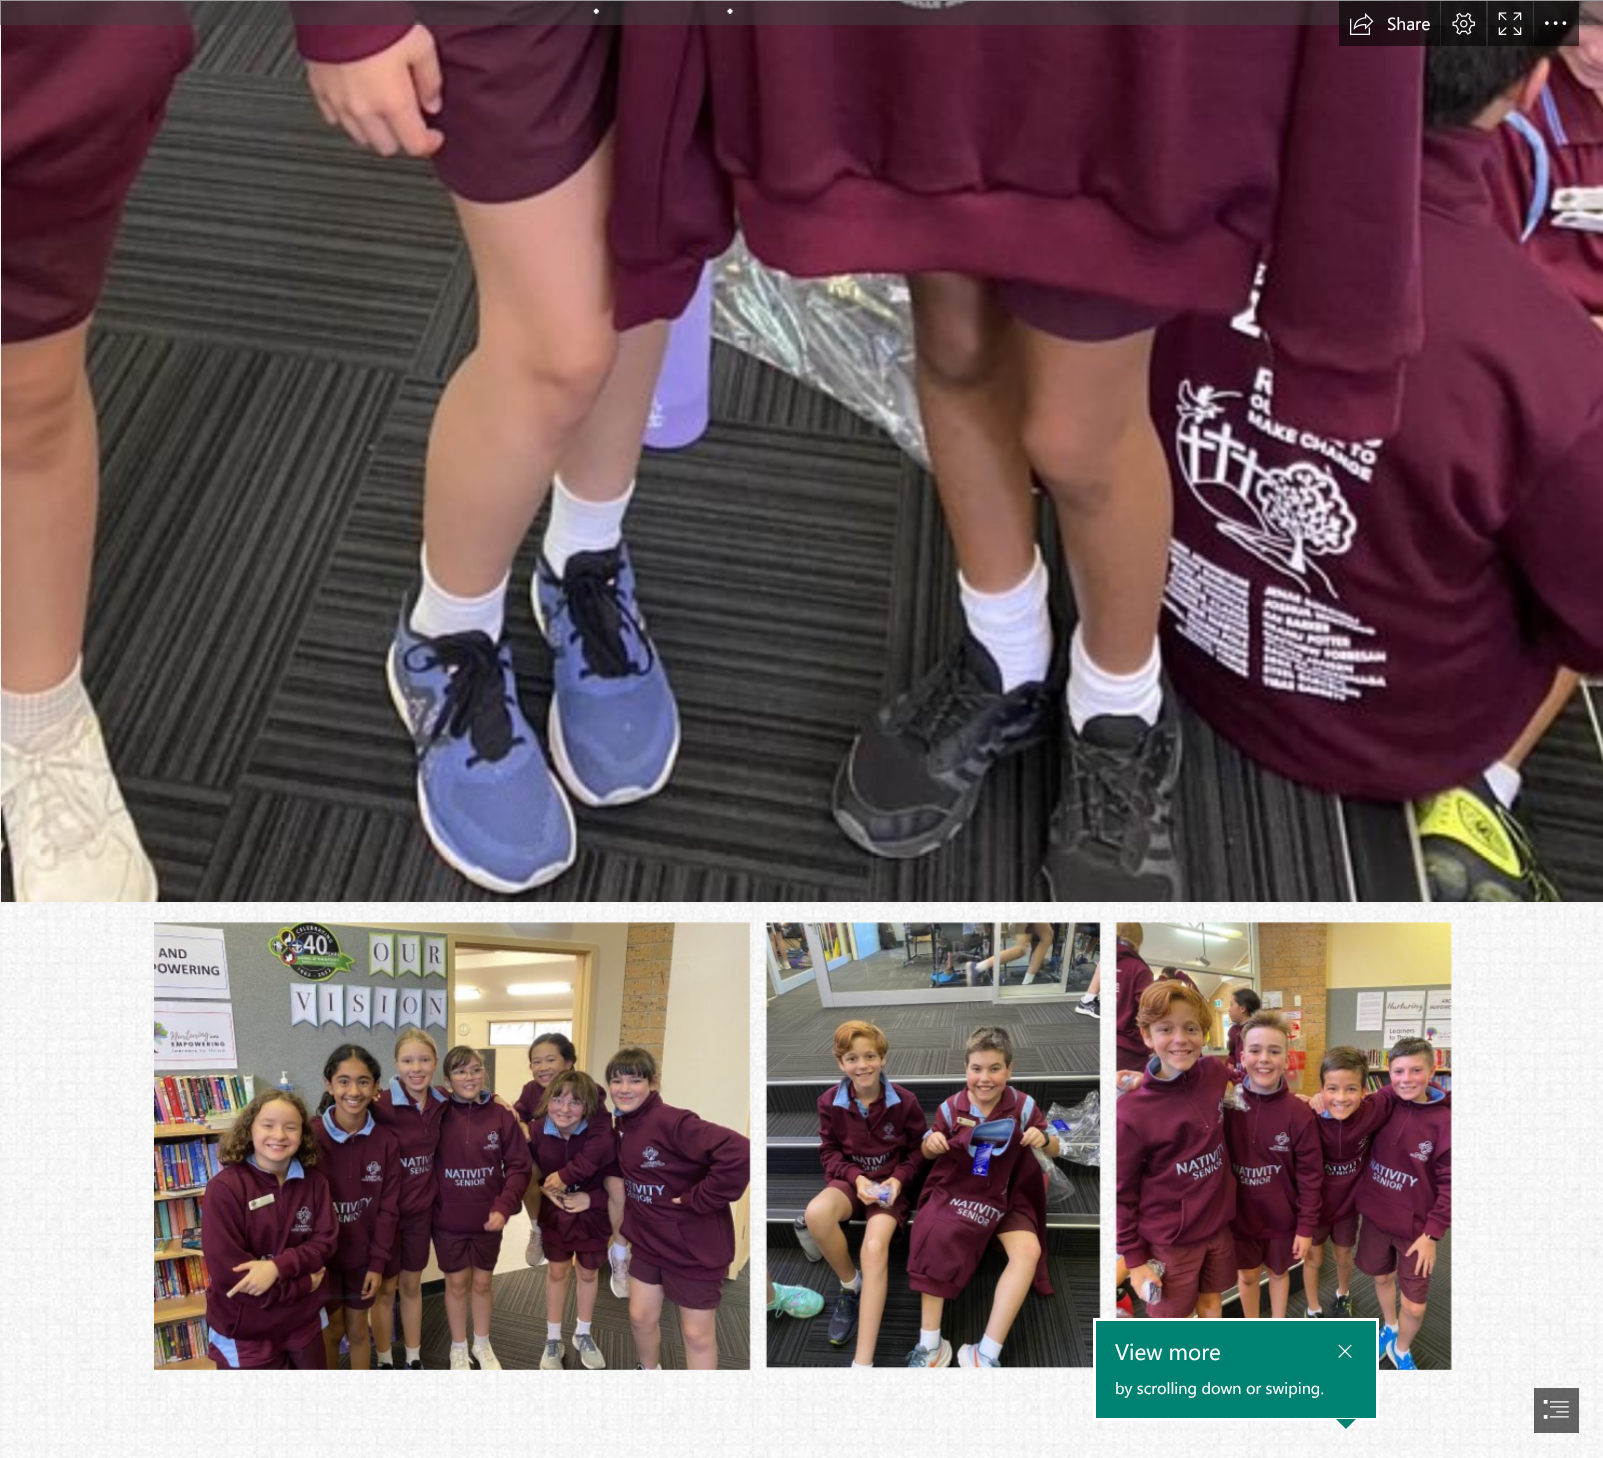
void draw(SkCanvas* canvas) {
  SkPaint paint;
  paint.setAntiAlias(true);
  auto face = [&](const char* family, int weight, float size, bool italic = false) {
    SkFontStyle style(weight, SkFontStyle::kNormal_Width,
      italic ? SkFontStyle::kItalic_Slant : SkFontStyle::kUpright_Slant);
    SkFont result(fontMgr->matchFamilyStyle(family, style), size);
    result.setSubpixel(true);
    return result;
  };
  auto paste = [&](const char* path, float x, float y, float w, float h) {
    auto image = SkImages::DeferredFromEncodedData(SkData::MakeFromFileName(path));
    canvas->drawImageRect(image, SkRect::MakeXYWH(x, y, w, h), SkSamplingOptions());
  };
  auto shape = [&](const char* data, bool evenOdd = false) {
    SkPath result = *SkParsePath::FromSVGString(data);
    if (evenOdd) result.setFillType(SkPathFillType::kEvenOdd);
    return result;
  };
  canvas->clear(0xffeaeaea);
  paste("img/6.png", 0, 0, 1603, 1458);
  paste("img/7.png", 1, 1, 1602, 901);
  paint.setColor(0x80404040);
  canvas->drawRect(SkRect::MakeXYWH(0, 0, 1603, 25), paint);
  paint.setColor(0x99000000);
  canvas->drawRect(SkRect::MakeXYWH(1339, 1, 101, 45), paint);
  paste("img/1.png", 1350, 13, 24, 22);
  canvas->drawRect(SkRect::MakeXYWH(1441, 1, 45, 45), paint);
  paste("img/2.png", 1452, 12, 23, 23);
  canvas->drawRect(SkRect::MakeXYWH(1488, 1, 45, 45), paint);
  paste("img/3.png", 1498, 12, 24, 23);
  canvas->drawRect(SkRect::MakeXYWH(1534, 1, 45, 45), paint);
  paste("img/4.png", 1545, 21, 22, 4);
  paste("img/5.png", 593, 8, 140, 6);
  paste("img/8.png", 154, 922, 597, 448);
  paste("img/9.png", 765, 922, 336, 447);
  paste("img/10.png", 1115, 922, 337, 448);
  paint.setColor(0xff008272);
  canvas->drawRect(SkRect::MakeXYWH(1094.5f, 1319.5f, 283, 100), paint);
  paint.setStroke(true);
  paint.setStrokeWidth(3);
  paint.setColor(0xffffffff);
  canvas->drawRect(SkRect::MakeXYWH(1094.5f, 1319.5f, 283, 100), paint);
  paste("img/11.png", 1338, 1344, 14, 14);
  paint.setStroke(false);
  canvas->drawPath(shape("M1334 1419H1359L1346 1431Z"), paint);
  paint.setColor(0xff008272);
  canvas->drawPath(shape("M1336 1419H1356L1346 1429Z"), paint);
  paint.setColor(0x99000000);
  canvas->drawRect(SkRect::MakeXYWH(1534, 1388, 45, 45), paint);
  paste("img/12.png", 1543, 1400, 26, 19);
  auto f0 = face("Segoe UI", 400, 17.5f);
  paint.setColor(0xffffffff);
  canvas->drawString("Share", 1387, 30, f0, paint);
  auto f1 = face("Segoe UI", 400, 22.5f);
  canvas->drawString("View more", 1115, 1360, f1, paint);
  auto f2 = face("Segoe UI", 400, 16.25f);
  canvas->drawString("by scrolling down or swiping.", 1115, 1394, f2, paint);
}
